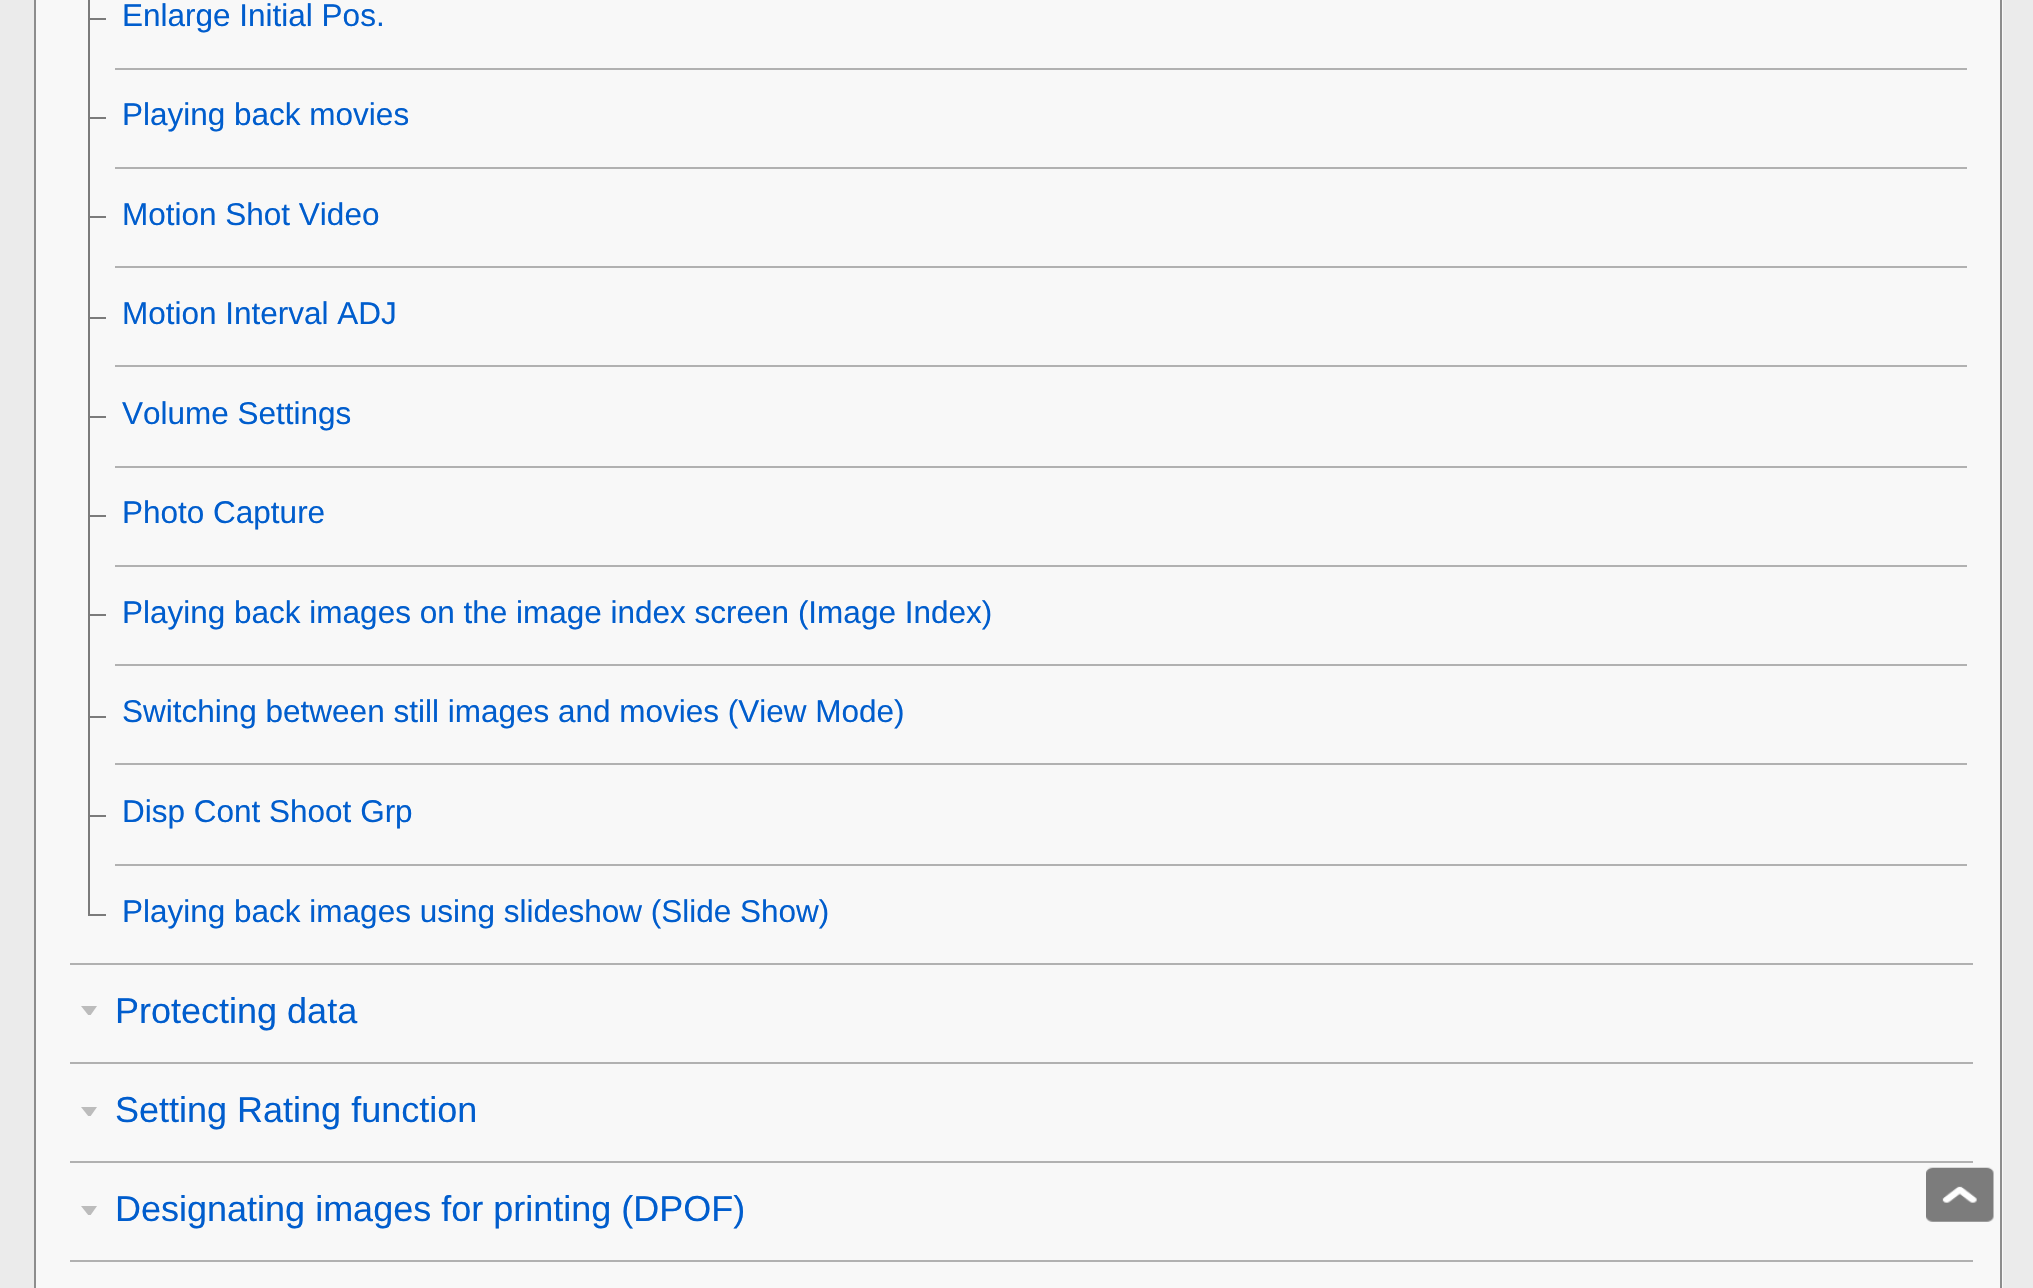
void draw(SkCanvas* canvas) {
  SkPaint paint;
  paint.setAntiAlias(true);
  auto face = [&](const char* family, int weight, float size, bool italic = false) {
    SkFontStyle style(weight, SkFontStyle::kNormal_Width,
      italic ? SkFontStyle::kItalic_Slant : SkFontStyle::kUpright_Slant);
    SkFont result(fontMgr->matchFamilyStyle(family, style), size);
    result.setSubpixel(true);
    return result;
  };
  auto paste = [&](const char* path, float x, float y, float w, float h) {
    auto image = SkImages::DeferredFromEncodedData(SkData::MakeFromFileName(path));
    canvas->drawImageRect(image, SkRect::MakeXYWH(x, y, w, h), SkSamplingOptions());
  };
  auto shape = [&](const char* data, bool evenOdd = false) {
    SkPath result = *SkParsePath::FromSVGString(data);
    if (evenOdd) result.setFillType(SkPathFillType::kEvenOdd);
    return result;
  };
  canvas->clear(0xffebebeb);
  {
    const struct { float x, y, w, h; SkColor color; } items[] = {
      {36, 0, 1967, 1288, 0xfff8f8f8},
      {2000, 0, 2, 1288, 0xff8d8d8d},
      {34, 0, 2, 1288, 0xff8d8d8d},
      {88, 18, 18, 2, 0xff7b7b7b},
      {88, 117, 18, 2, 0xff7b7b7b},
      {88, 216, 18, 2, 0xff7b7b7b},
      {88, 317, 18, 2, 0xff7b7b7b},
      {88, 416, 18, 2, 0xff7b7b7b},
      {88, 515, 18, 2, 0xff7b7b7b},
      {88, 614, 18, 2, 0xff7b7b7b},
      {88, 716, 18, 2, 0xff7b7b7b},
      {88, 815, 18, 2, 0xff7b7b7b},
      {88, 0, 2, 914, 0xff7b7b7b},
      {115, 68, 1852, 2, 0xffb1b1b1},
      {115, 167, 1852, 2, 0xffb1b1b1},
      {115, 266, 1852, 2, 0xffb1b1b1},
      {115, 365, 1852, 2, 0xffb1b1b1},
      {115, 466, 1852, 2, 0xffb1b1b1},
      {115, 565, 1852, 2, 0xffb1b1b1},
      {115, 664, 1852, 2, 0xffb1b1b1},
      {115, 763, 1852, 2, 0xffb1b1b1},
      {115, 864, 1852, 2, 0xffb1b1b1},
      {88, 914, 18, 2, 0xff7b7b7b},
    };
    for (auto [x, y, w, h, color] : items) {
      paint.setColor(color);
      canvas->drawRect(SkRect::MakeXYWH(x, y, w, h), paint);
    }
  }
  canvas->save();
  canvas->clipRect(SkRect::MakeXYWH(81, 1006, 16, 9));
  paint.setColor(0xffbcbcbc);
  canvas->drawPath(shape("M81 1006L89 1016H90L97 1006Z"), paint);
  canvas->restore();
  paint.setColor(0xffb1b1b1);
  canvas->drawRect(SkRect::MakeXYWH(70, 963, 1903, 2), paint);
  canvas->drawRect(SkRect::MakeXYWH(70, 1062, 1903, 2), paint);
  canvas->save();
  canvas->clipRect(SkRect::MakeXYWH(81, 1107, 16, 9));
  paint.setColor(0xffbcbcbc);
  canvas->drawPath(shape("M81 1107L89 1117H90L97 1107Z"), paint);
  canvas->restore();
  paint.setColor(0xffb1b1b1);
  canvas->drawRect(SkRect::MakeXYWH(70, 1161, 1903, 2), paint);
  canvas->save();
  canvas->clipRect(SkRect::MakeXYWH(81, 1206, 16, 9));
  paint.setColor(0xffbcbcbc);
  canvas->drawPath(shape("M81 1206L89 1216H90L97 1206Z"), paint);
  canvas->restore();
  paint.setColor(0xffb1b1b1);
  canvas->drawRect(SkRect::MakeXYWH(70, 1260, 1903, 2), paint);
  paste("img/1.png", 1926, 1167, 68, 55);
  auto f0 = face("Liberation Sans", 400, 31.5f);
  paint.setColor(0xff005dcd);
  {
    const struct { const char* s; float x, y; } items[] = {
      {"Enlarge Initial Pos.", 122, 26},
      {"Playing back movies", 122, 125},
      {"Motion Shot Video", 122, 225},
      {"Motion Interval ADJ", 122, 324},
      {"Volume Settings", 122, 424},
      {"Photo Capture", 122, 523},
      {"Playing back images on the image index screen (Image Index)", 122, 623},
      {"Switching between still images and movies (View Mode)", 122, 722},
      {"Disp Cont Shoot Grp", 122, 822},
      {"Playing back images using slideshow (Slide Show)", 122, 922},
    };
    for (auto [s, x, y] : items) {
      canvas->drawString(s, x, y, f0, paint);
    }
  }
  auto f1 = face("Liberation Sans", 400, 36);
  {
    const struct { const char* s; float x, y; } items[] = {
      {"Protecting data", 115, 1023},
      {"Setting Rating function", 115, 1122},
      {"Designating images for printing (DPOF)", 115, 1221},
    };
    for (auto [s, x, y] : items) {
      canvas->drawString(s, x, y, f1, paint);
    }
  }
}
